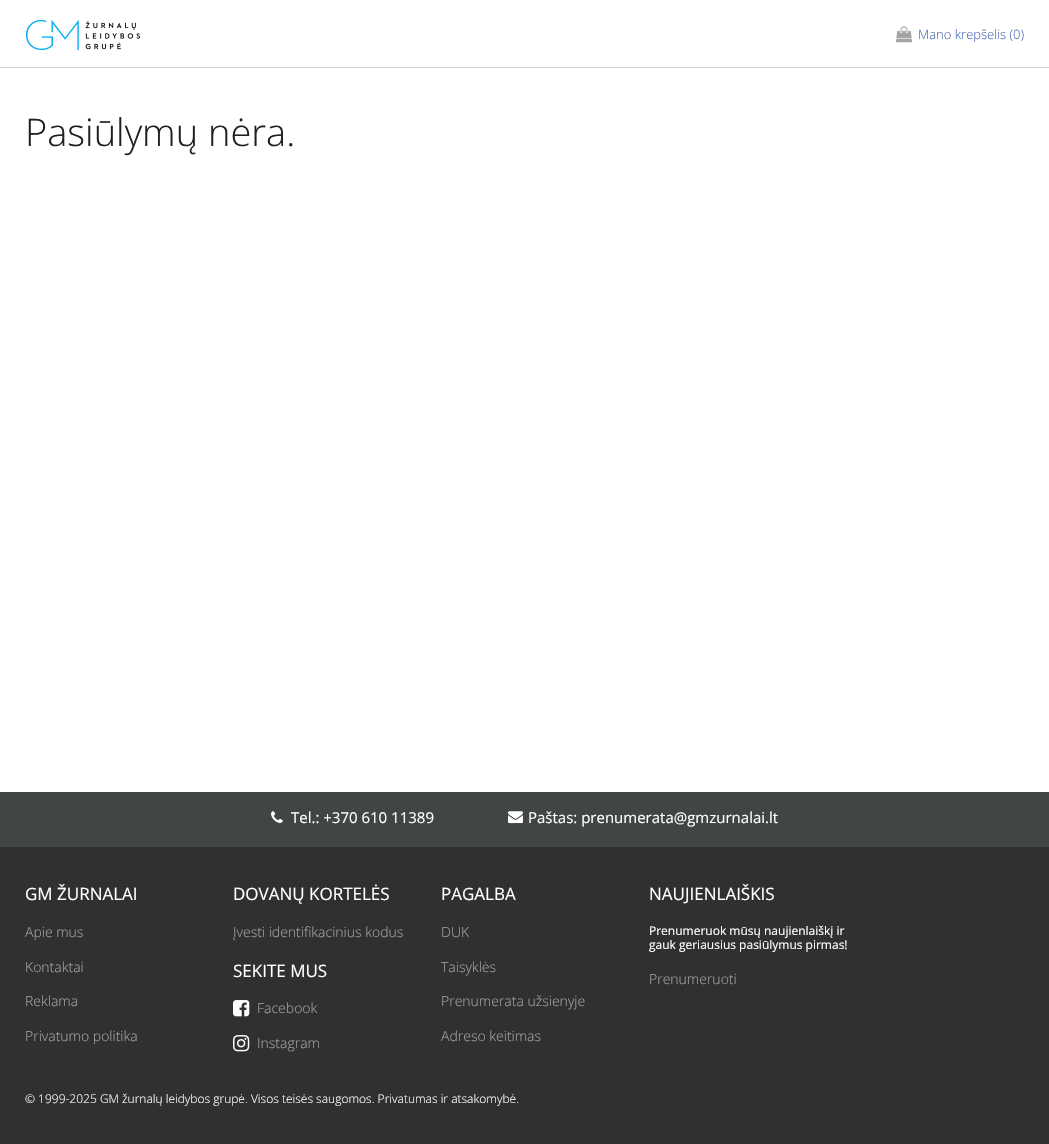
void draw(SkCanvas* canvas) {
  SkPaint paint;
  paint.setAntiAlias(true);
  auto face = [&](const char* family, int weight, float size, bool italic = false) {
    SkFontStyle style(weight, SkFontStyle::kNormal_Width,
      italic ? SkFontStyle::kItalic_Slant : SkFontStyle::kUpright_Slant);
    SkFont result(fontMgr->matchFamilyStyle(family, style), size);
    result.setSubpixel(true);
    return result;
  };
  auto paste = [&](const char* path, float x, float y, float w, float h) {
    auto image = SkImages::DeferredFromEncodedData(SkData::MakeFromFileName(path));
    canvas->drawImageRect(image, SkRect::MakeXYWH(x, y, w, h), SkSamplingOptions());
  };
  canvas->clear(0xffffffff);
  paint.setColor(0xffd1d1d1);
  canvas->drawRect(SkRect::MakeXYWH(0, 67, 1049, 1), paint);
  paste("img/1.png", 26, 20, 114, 30);
  paste("img/2.png", 896, 26, 16, 17);
  paint.setColor(0xff2e3031);
  canvas->drawRect(SkRect::MakeXYWH(0, 847, 1049, 297), paint);
  paint.setColor(0xff424546);
  canvas->drawRect(SkRect::MakeXYWH(0, 792, 1049, 55), paint);
  paste("img/3.png", 271, 811, 12, 12);
  paste("img/4.png", 508, 811, 15, 13);
  paste("img/5.png", 233, 1000, 17, 17);
  paste("img/6.png", 233, 1035, 17, 17);
  auto f0 = face("Open Sans", 300, 13);
  paint.setColor(0xff4b6bb3);
  canvas->drawString("Mano krepšelis (0)", 918, 39, f0, paint);
  auto f1 = face("Open Sans", 300, 38);
  paint.setColor(0xff231f20);
  canvas->drawString("Pasiūlymų nėra.", 25, 146, f1, paint);
  auto f2 = face("Open Sans", 400, 15);
  paint.setColor(0xffffffff);
  canvas->drawString("Tel.: +370 610 11389", 291, 823, f2, paint);
  canvas->drawString("Paštas: prenumerata@gmzurnalai.lt", 528, 823, f2, paint);
  auto f3 = face("Open Sans", 400, 17);
  canvas->drawString("GM ŽURNALAI", 25, 900, f3, paint);
  auto f4 = face("Open Sans", 300, 14);
  paint.setColor(0xffa1a3a3);
  {
    const struct { const char* s; float x, y; } items[] = {
      {"Apie mus", 25, 937},
      {"Kontaktai", 25, 972},
      {"Reklama", 25, 1006},
      {"Privatumo politika", 25, 1041},
    };
    for (auto [s, x, y] : items) {
      canvas->drawString(s, x, y, f4, paint);
    }
  }
  paint.setColor(0xffffffff);
  canvas->drawString("DOVANŲ KORTELĖS", 233, 900, f3, paint);
  paint.setColor(0xffa1a3a3);
  canvas->drawString("Įvesti identifikacinius kodus", 233, 937, f4, paint);
  paint.setColor(0xffffffff);
  canvas->drawString("SEKITE MUS", 233, 977, f3, paint);
  paint.setColor(0xffa1a3a3);
  canvas->drawString("Facebook", 257, 1013, f4, paint);
  canvas->drawString("Instagram", 257, 1048, f4, paint);
  paint.setColor(0xffffffff);
  canvas->drawString("PAGALBA", 441, 900, f3, paint);
  paint.setColor(0xffa1a3a3);
  {
    const struct { const char* s; float x, y; } items[] = {
      {"DUK", 441, 937},
      {"Taisyklės", 441, 972},
      {"Prenumerata užsienyje", 441, 1006},
      {"Adreso keitimas", 441, 1041},
    };
    for (auto [s, x, y] : items) {
      canvas->drawString(s, x, y, f4, paint);
    }
  }
  paint.setColor(0xffffffff);
  canvas->drawString("NAUJIENLAIŠKIS", 649, 900, f3, paint);
  auto f5 = face("Open Sans", 400, 12);
  canvas->drawString("Prenumeruok mūsų naujienlaiškį ir", 649, 935, f5, paint);
  canvas->drawString("gauk geriausius pasiūlymus pirmas!", 649, 949, f5, paint);
  paint.setColor(0xffa1a3a3);
  canvas->drawString("Prenumeruoti", 649, 984, f4, paint);
  auto f6 = face("Open Sans", 300, 12);
  paint.setColor(0xffffffff);
  canvas->drawString("© 1999-2025 GM žurnalų leidybos grupė. Visos teisės saugomos. Privatumas ir atsakomybė.", 25, 1103, f6, paint);
}
